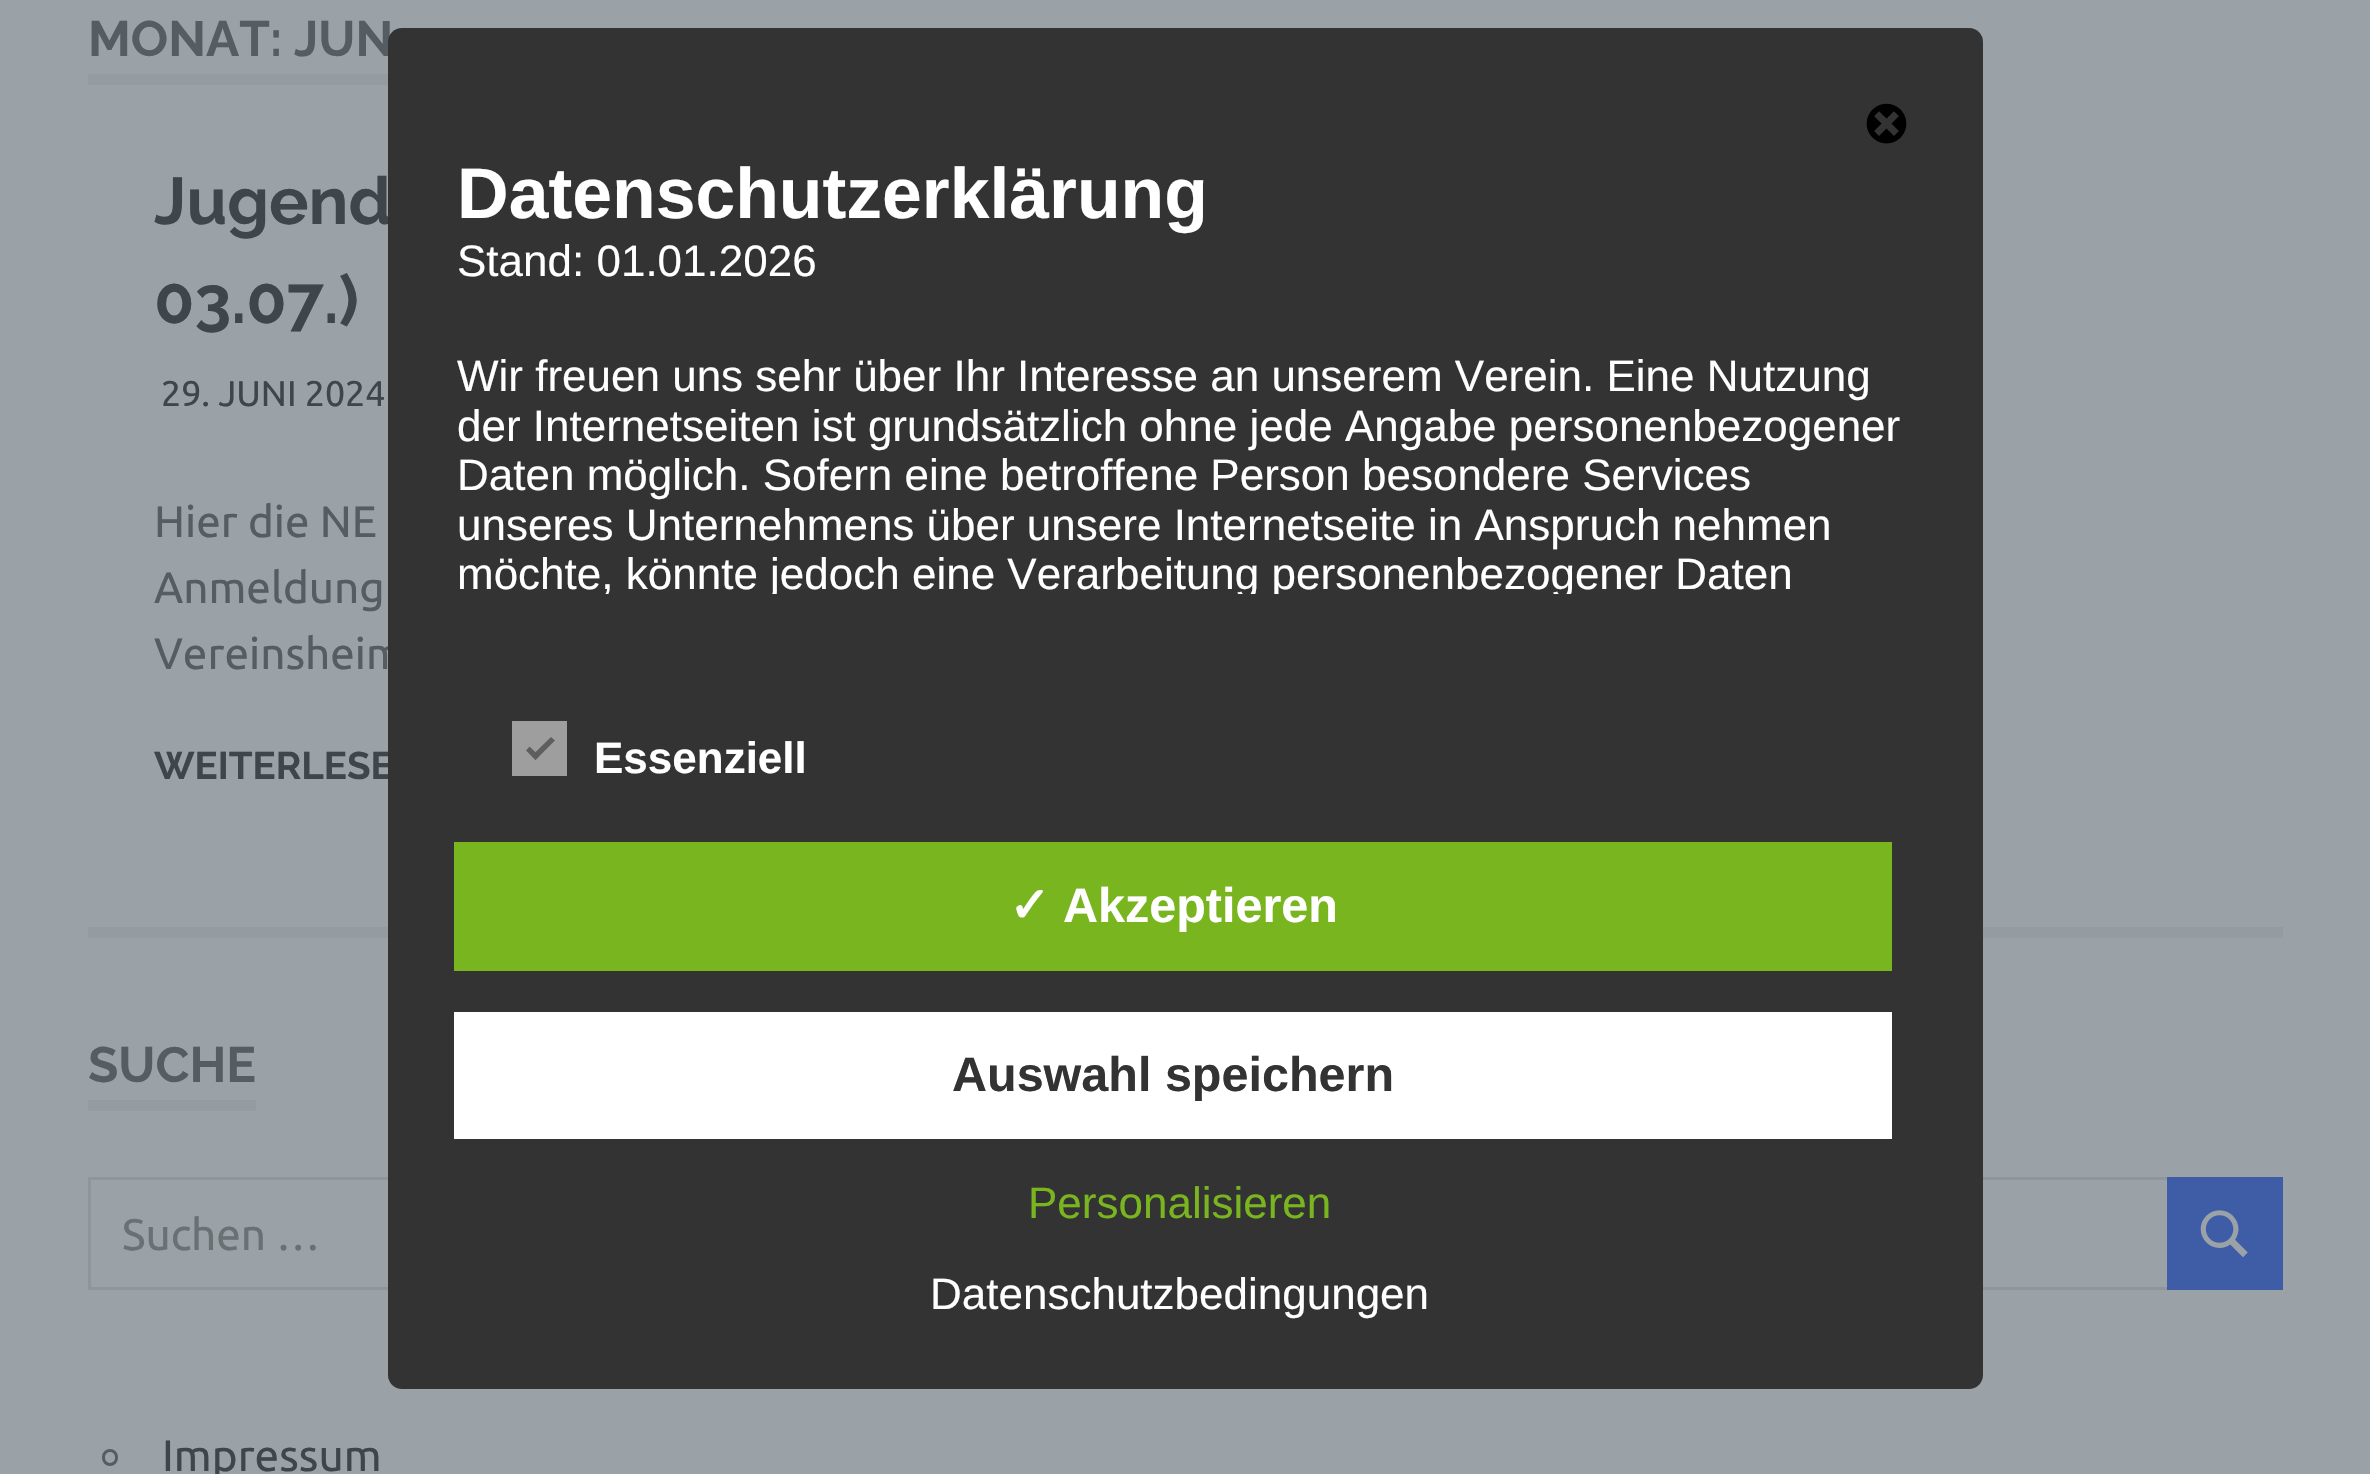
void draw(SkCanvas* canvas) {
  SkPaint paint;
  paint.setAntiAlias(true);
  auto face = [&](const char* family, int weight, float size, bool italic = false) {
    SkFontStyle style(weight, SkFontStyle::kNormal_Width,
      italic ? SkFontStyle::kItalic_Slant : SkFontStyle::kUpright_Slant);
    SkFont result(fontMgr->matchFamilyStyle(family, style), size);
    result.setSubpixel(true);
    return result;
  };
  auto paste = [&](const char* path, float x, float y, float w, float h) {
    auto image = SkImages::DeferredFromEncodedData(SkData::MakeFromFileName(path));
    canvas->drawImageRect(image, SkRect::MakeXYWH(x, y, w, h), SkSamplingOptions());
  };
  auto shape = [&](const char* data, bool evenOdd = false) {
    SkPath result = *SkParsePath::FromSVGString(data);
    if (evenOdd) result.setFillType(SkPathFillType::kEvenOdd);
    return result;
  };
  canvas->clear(0xff9ba2a7);
  {
    const struct { float x, y, w, h; SkColor color; } items[] = {
      {88, 74, 300, 11, 0xff949ca1},
      {88, 927, 2195, 11, 0xff949ca1},
      {88, 1100, 168, 11, 0xff949ca1},
    };
    for (auto [x, y, w, h, color] : items) {
      paint.setColor(color);
      canvas->drawRect(SkRect::MakeXYWH(x, y, w, h), paint);
    }
  }
  paint.setStroke(true);
  paint.setStrokeWidth(3);
  paint.setColor(0xff8e969a);
  canvas->drawRect(SkRect::MakeXYWH(89.5f, 1178.5f, 2079, 110), paint);
  paint.setStroke(false);
  paint.setColor(0xff3f5da7);
  canvas->drawRect(SkRect::MakeXYWH(2167, 1177, 116, 113), paint);
  paste("img/1.png", 2200, 1210, 48, 48);
  paint.setStroke(true);
  paint.setColor(0xff565d62);
  canvas->drawRoundRect(SkRect::MakeXYWH(103.5f, 1450.5f, 13, 14), 6.5f, 6.5f, paint);
  auto f0 = face("Raleway", 700, 49.5f);
  paint.setStroke(false);
  canvas->drawString("MONAT: JUN", 88, 56, f0, paint);
  auto f1 = face("Raleway", 700, 66);
  paint.setColor(0xff3f464b);
  canvas->drawString("Jugend", 154, 224, f1, paint);
  canvas->drawString("03.07.)", 154, 323, f1, paint);
  auto f2 = face("Ubuntu", 400, 35.75f);
  canvas->drawString("29. JUNI 2024", 161, 406, f2, paint);
  auto f3 = face("Ubuntu", 400, 44);
  paint.setColor(0xff565d62);
  {
    const struct { const char* s; float x, y; } items[] = {
      {"Hier die NE", 154, 537},
      {"Anmeldung", 154, 603},
      {"Vereinsheim", 154, 669},
    };
    for (auto [s, x, y] : items) {
      canvas->drawString(s, x, y, f3, paint);
    }
  }
  auto f4 = face("Raleway", 700, 38.5f);
  paint.setColor(0xff3f464b);
  canvas->drawString("WEITERLESE", 154, 779, f4, paint);
  paint.setColor(0xff565d62);
  canvas->drawString("SUCHE", 88, 1082, f0, paint);
  paint.setColor(0xff697175);
  canvas->drawString("Suchen …", 122, 1250, f3, paint);
  paint.setColor(0xff3f464b);
  canvas->drawString("Impressum", 162, 1471, f3, paint);
  paint.setColor(0xff333333);
  canvas->drawRoundRect(SkRect::MakeXYWH(388, 28, 1595, 1361), 14, 14, paint);
  paste("img/2.png", 1866, 103, 41, 41);
  auto f5 = face("Liberation Sans", 700, 71.5f);
  paint.setColor(0xffffffff);
  canvas->drawString("Datenschutzerklärung", 457, 218, f5, paint);
  auto f6 = face("Liberation Sans", 400, 44);
  {
    const struct { const char* s; float x, y; } items[] = {
      {"Stand: 01.01.2026", 457, 276},
      {"Wir freuen uns sehr über Ihr Interesse an unserem Verein. Eine Nutzung", 457, 391},
      {"der Internetseiten ist grundsätzlich ohne jede Angabe personenbezogener", 457, 441},
      {"Daten möglich. Sofern eine betroffene Person besondere Services", 457, 490},
      {"unseres Unternehmens über unsere Internetseite in Anspruch nehmen", 457, 540},
    };
    for (auto [s, x, y] : items) {
      canvas->drawString(s, x, y, f6, paint);
    }
  }
  canvas->save();
  canvas->clipRect(SkRect::MakeXYWH(457, 151, 1485, 443));
  canvas->drawString("möchte, könnte jedoch eine Verarbeitung personenbezogener Daten", 457, 589, f6, paint);
  canvas->restore();
  paint.setColor(0xff9e9e9e);
  canvas->drawRect(SkRect::MakeXYWH(512, 721, 55, 55), paint);
  paint.setColor(0xff5e5e5e);
  canvas->drawPath(shape("M551 737L555 740.5L535.5 760L531.5 756Z"), paint);
  canvas->drawPath(shape("M529.5 746.5L539.5 756L535.5 760L526 750.5Z"), paint);
  auto f7 = face("Liberation Sans", 700, 44);
  paint.setColor(0xffffffff);
  canvas->drawString("Essenziell", 594, 773, f7, paint);
  paint.setColor(0xff79b51f);
  canvas->drawRect(SkRect::MakeXYWH(454, 842, 1438, 129), paint);
  auto f8 = face("DejaVu Sans", 700, 48.5f);
  paint.setColor(0xffffffff);
  canvas->drawString("✓", 1009, 922, f8, paint);
  auto f9 = face("Liberation Sans", 700, 48.5f);
  canvas->drawString("Akzeptieren", 1063, 922, f9, paint);
  canvas->drawRect(SkRect::MakeXYWH(454, 1012, 1438, 127), paint);
  paint.setColor(0xff333333);
  canvas->drawString("Auswahl speichern", 952, 1091, f9, paint);
  paint.setColor(0xff79b51f);
  canvas->drawString("Personalisieren", 1028, 1218, f6, paint);
  paint.setColor(0xffffffff);
  canvas->drawString("Datenschutzbedingungen", 930, 1309, f6, paint);
}
